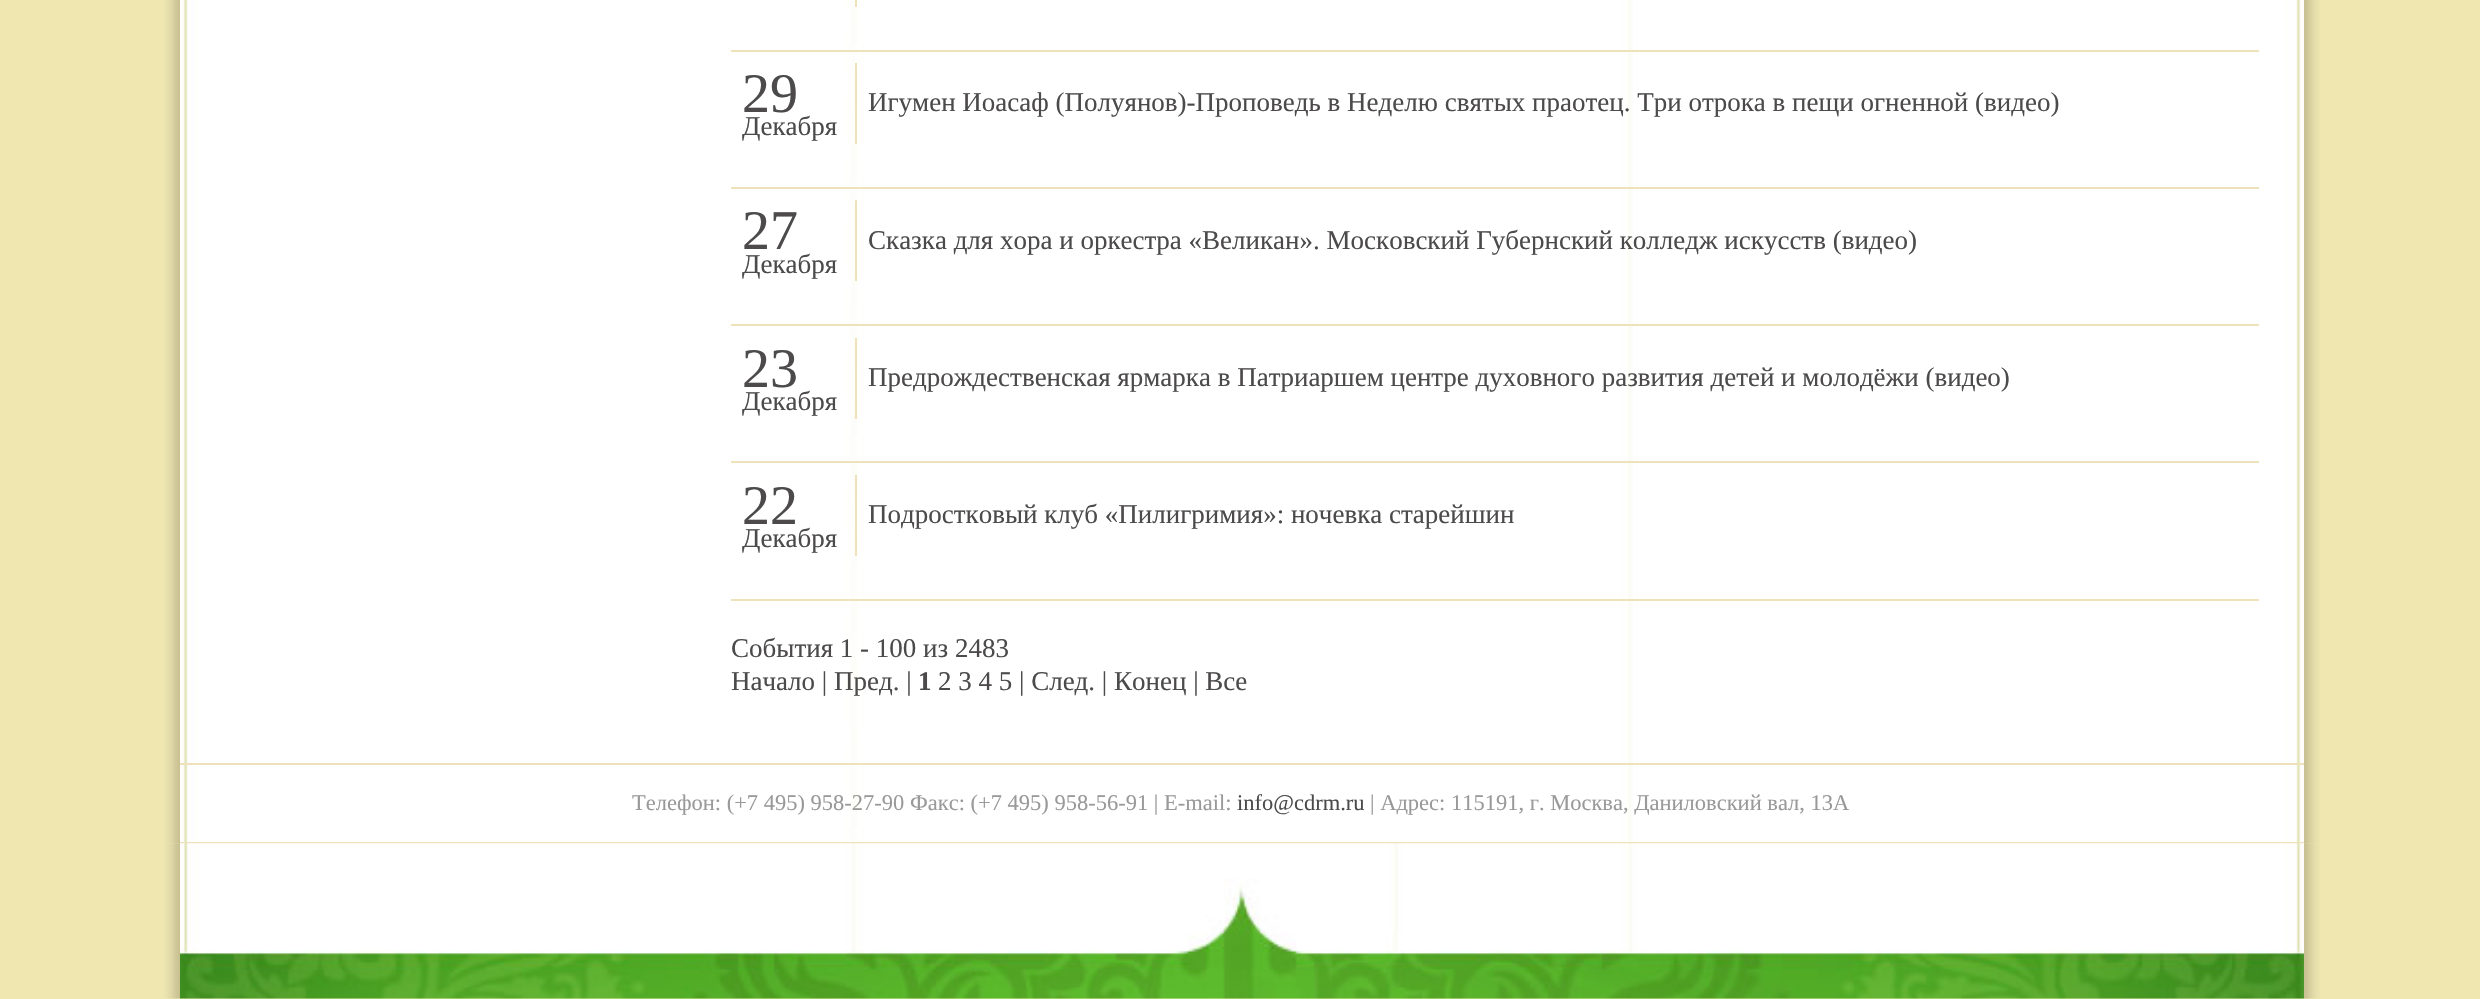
void draw(SkCanvas* canvas) {
  SkPaint paint;
  paint.setAntiAlias(true);
  auto face = [&](const char* family, int weight, float size, bool italic = false) {
    SkFontStyle style(weight, SkFontStyle::kNormal_Width,
      italic ? SkFontStyle::kItalic_Slant : SkFontStyle::kUpright_Slant);
    SkFont result(fontMgr->matchFamilyStyle(family, style), size);
    result.setSubpixel(true);
    return result;
  };
  auto paste = [&](const char* path, float x, float y, float w, float h) {
    auto image = SkImages::DeferredFromEncodedData(SkData::MakeFromFileName(path));
    canvas->drawImageRect(image, SkRect::MakeXYWH(x, y, w, h), SkSamplingOptions());
  };
  canvas->clear(0xfff0e7b0);
  paste("img/1.png", 164, 0, 16, 844);
  paste("img/2.png", 180, 0, 2124, 842);
  {
    const struct { float x, y, w, h; SkColor color; } items[] = {
      {731, 50, 1528, 2, 0xffefe2bb},
      {855, 0, 2, 7, 0xffefe2bb},
      {731, 187, 1528, 2, 0xffefe2bb},
      {855, 63, 2, 81, 0xffefe2bb},
      {731, 324, 1528, 2, 0xffefe2bb},
      {855, 200, 2, 81, 0xffefe2bb},
      {731, 461, 1528, 2, 0xffefe2bb},
      {855, 338, 2, 81, 0xffefe2bb},
      {731, 599, 1528, 2, 0xffefe2bb},
      {855, 475, 2, 81, 0xffefe2bb},
      {180, 763, 2124, 2, 0xffefe2bb},
      {180, 842, 2124, 2, 0xffefe2bb},
    };
    for (auto [x, y, w, h, color] : items) {
      paint.setColor(color);
      canvas->drawRect(SkRect::MakeXYWH(x, y, w, h), paint);
    }
  }
  paste("img/3.png", 2304, 0, 16, 844);
  paste("img/4.png", 164, 843, 16, 156);
  paste("img/5.png", 180, 843, 2124, 156);
  paste("img/6.png", 2304, 843, 16, 156);
  auto f0 = face("Liberation Serif", 400, 56);
  paint.setColor(0xff4c4a4a);
  canvas->drawString("29", 742, 112, f0, paint);
  auto f1 = face("Liberation Serif", 400, 27);
  canvas->drawString("Декабря", 742, 135, f1, paint);
  canvas->drawString("Игумен Иоасаф (Полуянов)-Проповедь в Неделю святых праотец. Три отрока в пещи огненной (видео)", 868, 111, f1, paint);
  canvas->drawString("27", 742, 249, f0, paint);
  canvas->drawString("Декабря", 742, 273, f1, paint);
  canvas->drawString("Сказка для хора и оркестра «Великан». Московский Губернский колледж искусств (видео)", 868, 249, f1, paint);
  canvas->drawString("23", 742, 387, f0, paint);
  canvas->drawString("Декабря", 742, 410, f1, paint);
  canvas->drawString("Предрождественская ярмарка в Патриаршем центре духовного развития детей и молодёжи (видео)", 868, 386, f1, paint);
  canvas->drawString("22", 742, 524, f0, paint);
  {
    const struct { const char* s; float x, y; } items[] = {
      {"Декабря", 742, 547},
      {"Подростковый клуб «Пилигримия»: ночевка старейшин", 868, 523},
      {"События 1 - 100 из 2483", 731, 657},
      {"Начало | Пред. |", 731, 690},
    };
    for (auto [s, x, y] : items) {
      canvas->drawString(s, x, y, f1, paint);
    }
  }
  auto f2 = face("Liberation Serif", 700, 27);
  canvas->drawString("1", 918, 690, f2, paint);
  canvas->drawString("2 3 4 5 | След. | Конец | Все", 938, 690, f1, paint);
  auto f3 = face("Liberation Serif", 400, 22.5f);
  paint.setColor(0xff999999);
  canvas->drawString("Телефон: (+7 495) 958-27-90 Факс: (+7 495) 958-56-91 | E-mail:", 632, 810, f3, paint);
  paint.setColor(0xff4c4a4a);
  canvas->drawString("info@cdrm.ru", 1237, 810, f3, paint);
  paint.setColor(0xff999999);
  canvas->drawString("| Адрес: 115191, г. Москва, Даниловский вал, 13А", 1370, 810, f3, paint);
}
